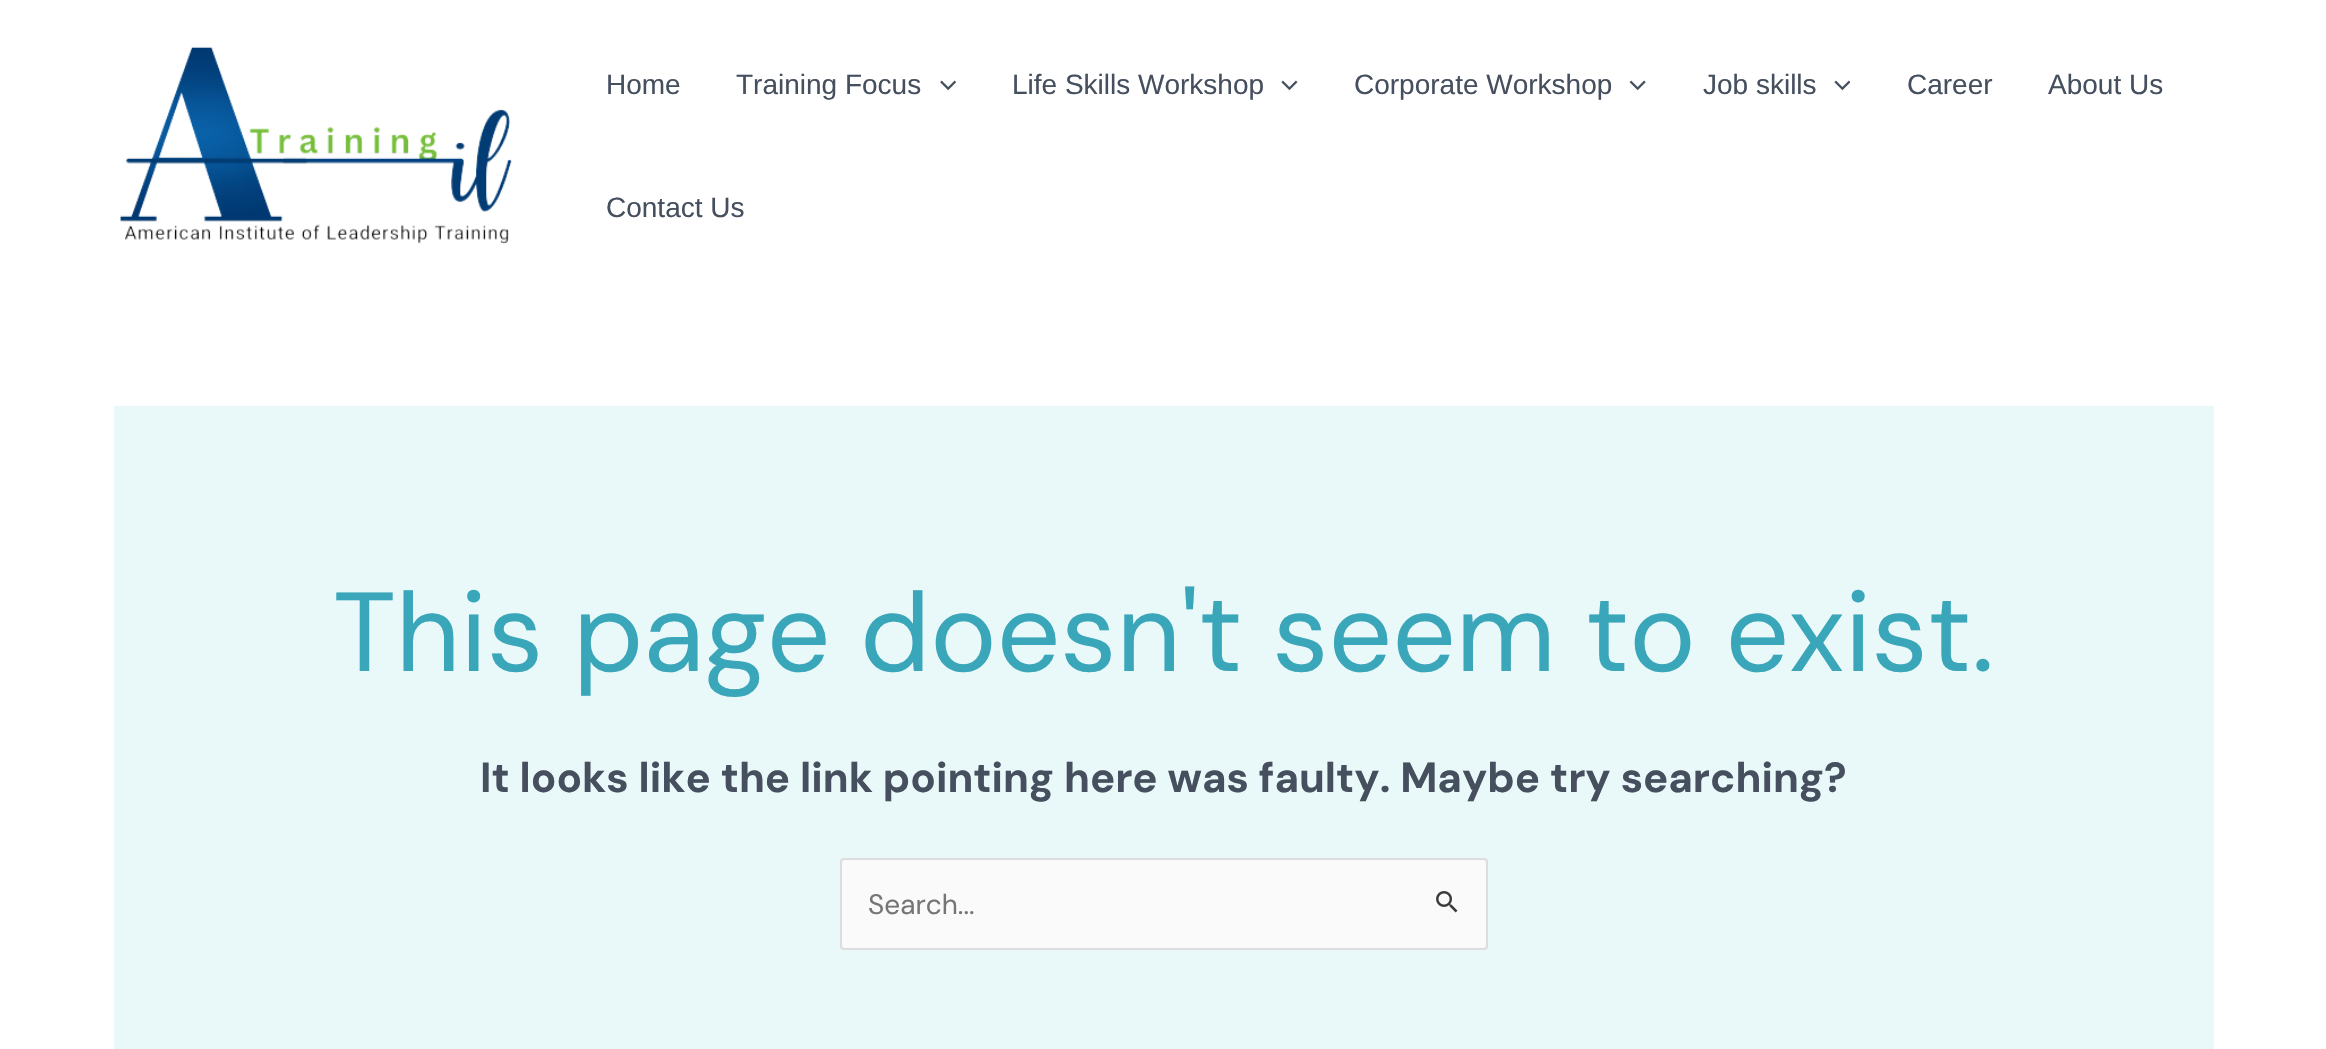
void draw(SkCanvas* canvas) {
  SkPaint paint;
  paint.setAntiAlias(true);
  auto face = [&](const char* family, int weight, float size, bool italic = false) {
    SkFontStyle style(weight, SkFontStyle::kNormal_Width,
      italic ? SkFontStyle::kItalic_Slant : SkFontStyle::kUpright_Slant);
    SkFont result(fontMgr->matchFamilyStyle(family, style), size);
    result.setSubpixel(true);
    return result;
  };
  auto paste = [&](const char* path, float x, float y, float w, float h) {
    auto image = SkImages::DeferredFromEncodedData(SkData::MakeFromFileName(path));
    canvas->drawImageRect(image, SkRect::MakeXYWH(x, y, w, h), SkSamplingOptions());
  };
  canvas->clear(0xffffffff);
  paste("img/1.png", 120, 46, 392, 198);
  paste("img/2.png", 940, 80, 16, 11);
  paste("img/3.png", 1281, 80, 17, 11);
  paste("img/4.png", 1629, 80, 17, 11);
  paste("img/5.png", 1834, 80, 16, 11);
  paint.setColor(0xffe9f8f9);
  canvas->drawRect(SkRect::MakeXYWH(114, 406, 2100, 643), paint);
  paint.setColor(0xfffafafa);
  canvas->drawRoundRect(SkRect::MakeXYWH(841, 859, 646, 90), 3, 3, paint);
  paint.setStroke(true);
  paint.setStrokeWidth(2);
  paint.setColor(0xffdddddd);
  canvas->drawRoundRect(SkRect::MakeXYWH(841, 859, 646, 90), 3, 3, paint);
  paste("img/6.png", 1436, 891, 22, 22);
  auto f0 = face("Liberation Sans", 400, 28);
  paint.setStroke(false);
  paint.setColor(0xff454f5e);
  {
    const struct { const char* s; float x, y; } items[] = {
      {"Home", 606, 94},
      {"Training Focus", 736, 94},
      {"Life Skills Workshop", 1012, 94},
      {"Corporate Workshop", 1354, 94},
      {"Job skills", 1703, 94},
      {"Career", 1907, 94},
      {"About Us", 2048, 94},
      {"Contact Us", 606, 217},
    };
    for (auto [s, x, y] : items) {
      canvas->drawString(s, x, y, f0, paint);
    }
  }
  auto f1 = face("DM Sans", 400, 112);
  paint.setColor(0xff3aa6b9);
  canvas->drawString("This page doesn't seem to exist.", 333, 671, f1, paint);
  auto f2 = face("DM Sans", 700, 42);
  paint.setColor(0xff454f5e);
  canvas->drawString("It looks like the link pointing here was faulty. Maybe try searching?", 480, 792, f2, paint);
  auto f3 = face("DM Sans", 400, 28);
  paint.setColor(0xff757575);
  canvas->drawString("Search...", 868, 914, f3, paint);
}
